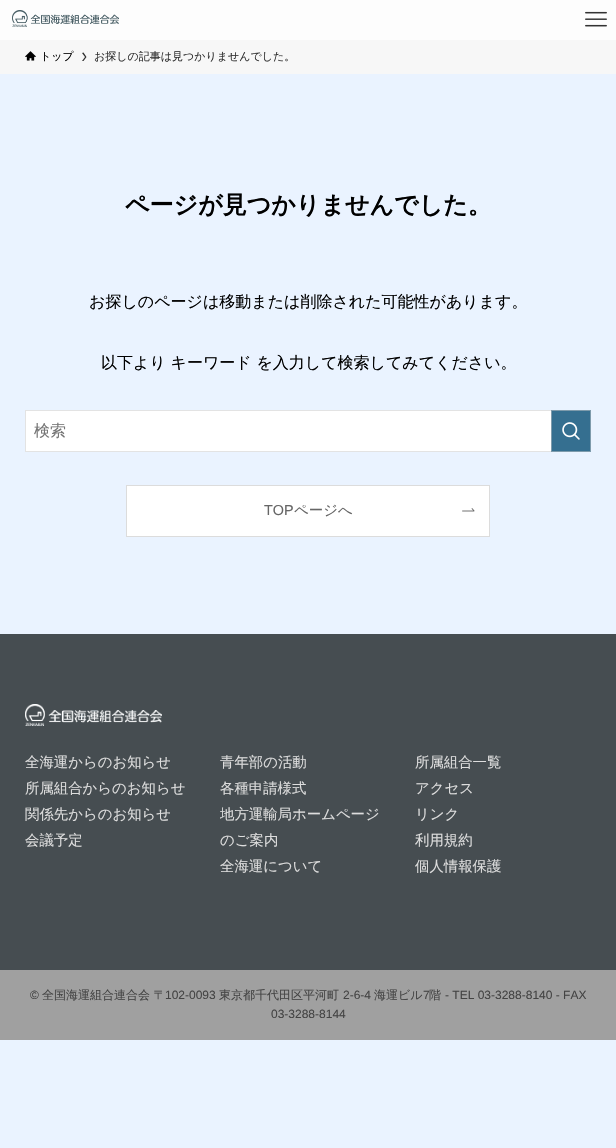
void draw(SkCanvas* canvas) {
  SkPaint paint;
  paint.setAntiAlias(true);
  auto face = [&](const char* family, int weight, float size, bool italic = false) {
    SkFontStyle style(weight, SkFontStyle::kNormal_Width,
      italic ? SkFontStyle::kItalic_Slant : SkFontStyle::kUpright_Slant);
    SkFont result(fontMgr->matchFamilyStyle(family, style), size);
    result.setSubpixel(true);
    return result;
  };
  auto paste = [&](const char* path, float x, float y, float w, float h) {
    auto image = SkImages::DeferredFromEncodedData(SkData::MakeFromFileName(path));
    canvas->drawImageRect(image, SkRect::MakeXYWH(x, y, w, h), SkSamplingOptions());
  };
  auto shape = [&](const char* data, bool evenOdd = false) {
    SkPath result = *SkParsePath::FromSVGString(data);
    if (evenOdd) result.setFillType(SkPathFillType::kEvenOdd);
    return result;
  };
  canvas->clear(0xffeaf3ff);
  paint.setColor(0xfffdfdfd);
  canvas->drawRect(SkRect::MakeXYWH(0, 0, 616, 40), paint);
  paste("img/1.png", 12, 10, 107, 17);
  paste("img/2.png", 585, 11, 22, 16);
  paint.setColor(0xfff7f7f7);
  canvas->drawRect(SkRect::MakeXYWH(0, 40, 616, 34), paint);
  paste("img/3.png", 25, 51, 11, 10);
  paint.setColor(0xff313131);
  canvas->drawPath(shape("M83.5 52.5L82 53L85 57L82 61H83.5L86.5 57Z"), paint);
  paint.setColor(0xffffffff);
  canvas->drawRect(SkRect::MakeXYWH(26, 411, 525, 40), paint);
  paint.setStroke(true);
  paint.setStrokeWidth(1);
  paint.setColor(0xffe3e3e3);
  canvas->drawRect(SkRect::MakeXYWH(25.5f, 410.5f, 565, 41), paint);
  paint.setStroke(false);
  paint.setColor(0xff356f90);
  canvas->drawRect(SkRect::MakeXYWH(551.5f, 410.5f, 39, 41), paint);
  paint.setStroke(true);
  paint.setColor(0xff7e9bac);
  canvas->drawRect(SkRect::MakeXYWH(551.5f, 410.5f, 39, 41), paint);
  paste("img/4.png", 562, 422, 18, 18);
  paint.setColor(0xffdcdcdc);
  canvas->drawRect(SkRect::MakeXYWH(126.5f, 485.5f, 363, 51), paint);
  paint.setStroke(false);
  paint.setColor(0xffffffff);
  canvas->drawRect(SkRect::MakeXYWH(127, 486, 362, 50), paint);
  paste("img/5.png", 462, 508, 13, 4);
  paint.setColor(0xff464d51);
  canvas->drawRect(SkRect::MakeXYWH(0, 634, 616, 336), paint);
  paste("img/6.png", 25, 704, 137, 22);
  paint.setColor(0xffa0a0a0);
  canvas->drawRect(SkRect::MakeXYWH(0, 970, 616, 70), paint);
  auto f0 = face("WenQuanYi Zen Hei", 500, 11);
  paint.setColor(0xff000000);
  canvas->drawString("トップ", 40, 60, f0, paint);
  paint.setColor(0xff313131);
  canvas->drawString("お探しの記事は見つかりませんでした。", 94, 60, f0, paint);
  auto f1 = face("WenQuanYi Zen Hei", 700, 24);
  paint.setColor(0xff000000);
  canvas->drawString("ページが見つかりませんでした。", 125, 213, f1, paint);
  auto f2 = face("WenQuanYi Zen Hei", 500, 16);
  canvas->drawString("お探しのページは移動または削除された可能性があります。", 89, 307, f2, paint);
  canvas->drawString("以下より キーワード を入力して検索してみてください。", 101, 368, f2, paint);
  paint.setColor(0xff757575);
  canvas->drawString("検索", 34, 436, f2, paint);
  auto f3 = face("Liberation Sans", 400, 14.4f);
  paint.setColor(0xff666666);
  canvas->drawString("TOP", 264, 515, f3, paint);
  auto f4 = face("WenQuanYi Zen Hei", 500, 14.4f);
  canvas->drawString("ページへ", 294, 515, f4, paint);
  paint.setColor(0xffdddddd);
  {
    const struct { const char* s; float x, y; } items[] = {
      {"全海運からのお知らせ", 25, 767},
      {"所属組合からのお知らせ", 25, 793},
      {"関係先からのお知らせ", 25, 819},
      {"会議予定", 25, 845},
      {"青年部の活動", 220, 767},
      {"各種申請様式", 220, 793},
      {"地方運輸局ホームページ", 220, 819},
      {"のご案内", 220, 845},
      {"全海運について", 220, 871},
      {"所属組合一覧", 415, 767},
      {"アクセス", 415, 793},
      {"リンク", 415, 819},
      {"利用規約", 415, 845},
      {"個人情報保護", 415, 871},
    };
    for (auto [s, x, y] : items) {
      canvas->drawString(s, x, y, f4, paint);
    }
  }
  auto f5 = face("Liberation Sans", 400, 12);
  paint.setColor(0xff444444);
  canvas->drawString("©", 30, 999, f5, paint);
  auto f6 = face("WenQuanYi Zen Hei", 500, 12);
  canvas->drawString("全国海運組合連合会 〒", 42, 999, f6, paint);
  canvas->drawString("102-0093", 165, 999, f5, paint);
  canvas->drawString("東京都千代田区平河町", 219, 999, f6, paint);
  canvas->drawString("2-6-4", 343, 999, f5, paint);
  canvas->drawString("海運ビル", 374, 999, f6, paint);
  canvas->drawString("7", 423, 999, f5, paint);
  canvas->drawString("階", 429, 999, f6, paint);
  canvas->drawString("- TEL 03-3288-8140 - FAX", 445, 999, f5, paint);
  canvas->drawString("03-3288-8144", 271, 1018, f5, paint);
}
